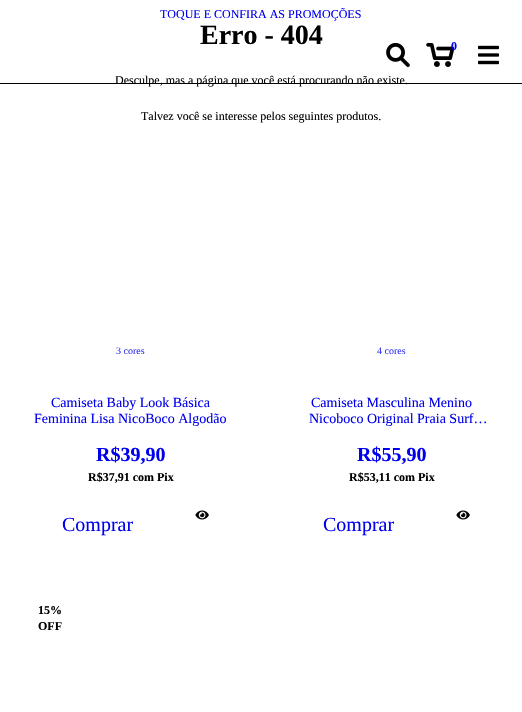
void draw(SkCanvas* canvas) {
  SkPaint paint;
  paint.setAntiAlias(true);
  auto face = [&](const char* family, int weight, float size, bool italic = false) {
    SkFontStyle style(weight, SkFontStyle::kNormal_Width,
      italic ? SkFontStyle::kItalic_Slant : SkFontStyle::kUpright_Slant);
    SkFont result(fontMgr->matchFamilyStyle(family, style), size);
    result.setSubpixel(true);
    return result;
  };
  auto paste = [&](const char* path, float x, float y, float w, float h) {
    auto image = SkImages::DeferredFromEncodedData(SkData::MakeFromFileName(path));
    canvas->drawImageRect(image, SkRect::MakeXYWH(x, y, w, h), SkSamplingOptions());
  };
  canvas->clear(0xffffffff);
  paste("img/1.png", 386, 43, 24, 24);
  paste("img/2.png", 426, 43, 29, 24);
  paste("img/3.png", 478, 45, 21, 20);
  paint.setColor(0xff000000);
  canvas->drawRect(SkRect::MakeXYWH(0, 83, 522, 1), paint);
  paste("img/4.png", 195, 510, 14, 10);
  paste("img/4.png", 456, 510, 14, 10);
  auto f0 = face("Liberation Serif", 400, 12);
  paint.setColor(0xff0000ee);
  canvas->drawString("TOQUE E CONFIRA AS PROMOÇÕES", 160, 18, f0, paint);
  auto f1 = face("Liberation Serif", 700, 12);
  canvas->drawString("0", 451, 50, f1, paint);
  auto f2 = face("Liberation Serif", 700, 28);
  paint.setColor(0xff000000);
  canvas->drawString("Erro - 404", 200, 44, f2, paint);
  canvas->drawString("Desculpe, mas a página que você está procurando não existe.", 115, 84, f0, paint);
  canvas->drawString("Talvez você se interesse pelos seguintes produtos.", 141, 120, f0, paint);
  auto f3 = face("Liberation Serif", 400, 10);
  paint.setColor(0xff3333f1);
  canvas->drawString("3 cores", 116, 354, f3, paint);
  auto f4 = face("Liberation Serif", 400, 14);
  paint.setColor(0xff0000ee);
  canvas->drawString("Camiseta Baby Look Básica", 51, 407, f4, paint);
  canvas->drawString("Feminina Lisa NicoBoco Algodão", 34, 423, f4, paint);
  auto f5 = face("Liberation Serif", 700, 20);
  canvas->drawString("R$39,90", 96, 461, f5, paint);
  paint.setColor(0xff000000);
  canvas->drawString("R$37,91 com Pix", 88, 481, f1, paint);
  auto f6 = face("Liberation Serif", 400, 20);
  paint.setColor(0xff0000ee);
  canvas->drawString("Comprar", 62, 531, f6, paint);
  paint.setColor(0xff3333f1);
  canvas->drawString("4 cores", 377, 354, f3, paint);
  paint.setColor(0xff0000ee);
  canvas->drawString("Camiseta Masculina Menino", 311, 407, f4, paint);
  canvas->drawString("Nicoboco Original Praia Surf…", 309, 423, f4, paint);
  canvas->drawString("R$55,90", 357, 461, f5, paint);
  paint.setColor(0xff000000);
  canvas->drawString("R$53,11 com Pix", 349, 481, f1, paint);
  paint.setColor(0xff0000ee);
  canvas->drawString("Comprar", 323, 531, f6, paint);
  paint.setColor(0xff000000);
  canvas->drawString("15%", 38, 614, f1, paint);
  canvas->drawString("OFF", 38, 630, f1, paint);
}
